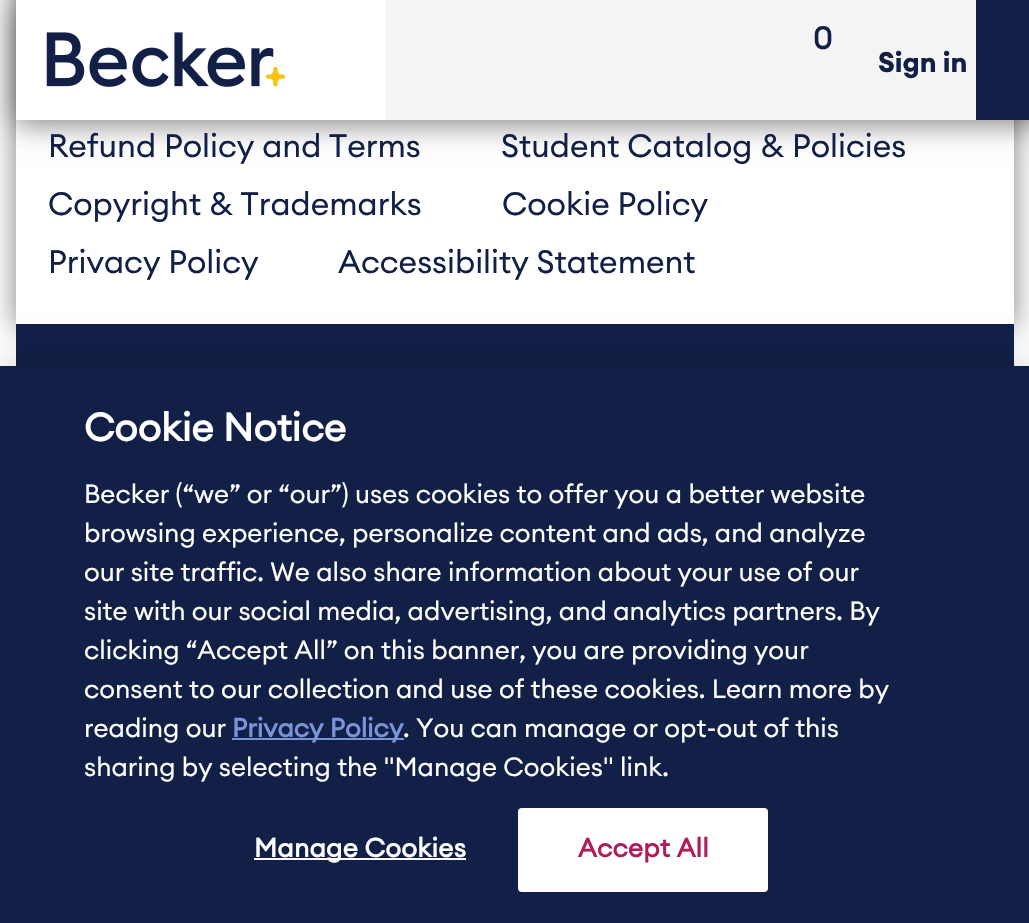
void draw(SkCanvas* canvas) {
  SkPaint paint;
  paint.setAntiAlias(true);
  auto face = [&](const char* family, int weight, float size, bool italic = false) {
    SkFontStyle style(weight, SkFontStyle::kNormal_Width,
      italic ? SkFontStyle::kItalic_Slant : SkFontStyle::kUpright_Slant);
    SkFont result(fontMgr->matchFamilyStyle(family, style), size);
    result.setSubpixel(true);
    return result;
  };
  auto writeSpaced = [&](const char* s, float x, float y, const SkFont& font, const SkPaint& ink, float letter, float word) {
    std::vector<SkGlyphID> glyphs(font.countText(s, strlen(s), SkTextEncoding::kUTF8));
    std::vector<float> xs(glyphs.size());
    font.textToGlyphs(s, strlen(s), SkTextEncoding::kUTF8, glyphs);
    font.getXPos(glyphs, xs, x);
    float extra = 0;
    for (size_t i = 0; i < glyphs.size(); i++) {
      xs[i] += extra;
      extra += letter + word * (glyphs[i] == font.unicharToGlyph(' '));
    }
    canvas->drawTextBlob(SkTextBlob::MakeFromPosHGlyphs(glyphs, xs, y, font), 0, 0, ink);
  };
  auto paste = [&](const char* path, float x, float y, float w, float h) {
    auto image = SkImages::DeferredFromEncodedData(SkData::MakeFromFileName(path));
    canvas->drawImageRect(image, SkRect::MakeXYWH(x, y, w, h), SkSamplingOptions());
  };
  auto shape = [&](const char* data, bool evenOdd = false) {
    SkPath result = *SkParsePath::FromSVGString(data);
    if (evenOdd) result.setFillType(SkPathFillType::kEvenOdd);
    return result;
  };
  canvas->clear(0xffffffff);
  paint.setColor(0x80000000);
  paint.setMaskFilter(SkMaskFilter::MakeBlur(kNormal_SkBlurStyle, 14));
  canvas->drawRect(SkRect::MakeXYWH(16, 4, 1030, 120), paint);
  paint.setMaskFilter(nullptr);
  canvas->save();
  canvas->clipPath(shape("M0 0H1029V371H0ZM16-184H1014V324H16Z", true), true);
  paint.setMaskFilter(SkMaskFilter::MakeBlur(kNormal_SkBlurStyle, 14));
  canvas->drawRect(SkRect::MakeXYWH(16, -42, 998, 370), paint);
  paint.setMaskFilter(nullptr);
  canvas->restore();
  paint.setColor(0xffffffff);
  canvas->drawRect(SkRect::MakeXYWH(16, 0, 370, 120), paint);
  paste("img/1.png", 46, 32, 240, 55);
  {
    const struct { float x, y, w, h; SkColor color; } items[] = {
      {386, 0, 590, 120, 0xfff4f4f4},
      {976, 0, 53, 120, 0xff122048},
      {16, 324, 998, 42, 0xff122048},
    };
    for (auto [x, y, w, h, color] : items) {
      paint.setColor(color);
      canvas->drawRect(SkRect::MakeXYWH(x, y, w, h), paint);
    }
  }
  paint.setColor(0x33000000);
  paint.setMaskFilter(SkMaskFilter::MakeBlur(kNormal_SkBlurStyle, 18));
  canvas->drawRect(SkRect::MakeXYWH(0, 366, 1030, 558), paint);
  paint.setMaskFilter(nullptr);
  {
    const struct { float x, y, w, h; SkColor color; } items[] = {
      {0, 366, 1029, 557, 0xff122048},
      {232, 738, 172, 2, 0xff7994d7},
      {254, 858, 212, 2, 0xffffffff},
    };
    for (auto [x, y, w, h, color] : items) {
      paint.setColor(color);
      canvas->drawRect(SkRect::MakeXYWH(x, y, w, h), paint);
    }
  }
  canvas->drawRoundRect(SkRect::MakeXYWH(519, 809, 248, 82), 3, 3, paint);
  paint.setStroke(true);
  paint.setStrokeWidth(2);
  canvas->drawRoundRect(SkRect::MakeXYWH(519, 809, 248, 82), 3, 3, paint);
  auto f0 = face("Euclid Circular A", 500, 32);
  paint.setStroke(false);
  paint.setColor(0xff122048);
  canvas->drawString("0", 813, 49, f0, paint);
  auto f1 = face("Euclid Circular A", 700, 28);
  canvas->drawString("Sign in", 878, 72, f1, paint);
  auto f2 = face("Euclid Circular A", 400, 32);
  {
    const struct { const char* s; float x, y; } items[] = {
      {"Refund Policy and Terms", 48, 157},
      {"Student Catalog & Policies", 501, 157},
      {"Copyright & Trademarks", 48, 215},
      {"Cookie Policy", 502, 215},
      {"Privacy Policy", 48, 273},
      {"Accessibility Statement", 338, 273},
    };
    for (auto [s, x, y] : items) {
      canvas->drawString(s, x, y, f2, paint);
    }
  }
  auto f3 = face("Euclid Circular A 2", 700, 38.5f);
  paint.setColor(0xffffffff);
  canvas->drawString("Cookie Notice", 84, 441, f3, paint);
  auto f4 = face("Euclid Circular A", 400, 26);
  {
    const struct { const char* s; float x, y; } items[] = {
      {"Becker (“we” or “our”) uses cookies to offer you a better website", 84, 503},
      {"browsing experience, personalize content and ads, and analyze", 84, 542},
      {"our site traffic. We also share information about your use of our", 84, 581},
      {"site with our social media, advertising, and analytics partners. By", 84, 620},
      {"clicking “Accept All” on this banner, you are providing your", 84, 659},
      {"consent to our collection and use of these cookies. Learn more by", 84, 698},
      {"reading our", 84, 737},
    };
    for (auto [s, x, y] : items) {
      canvas->drawString(s, x, y, f4, paint);
    }
  }
  auto f5 = face("Euclid Circular A 2", 700, 26);
  paint.setColor(0xff7994d7);
  canvas->drawString("Privacy Policy", 232, 737, f5, paint);
  paint.setColor(0xffffffff);
  canvas->drawString(". You can manage or opt-out of this", 403, 737, f4, paint);
  canvas->drawString("sharing by selecting the \"Manage Cookies\" link.", 84, 776, f4, paint);
  writeSpaced("Manage Cookies", 254, 857, f5, paint, 0.25f, 0);
  paint.setColor(0xffb01b5c);
  writeSpaced("Accept All", 578, 857, f5, paint, 0.25f, 0);
}
